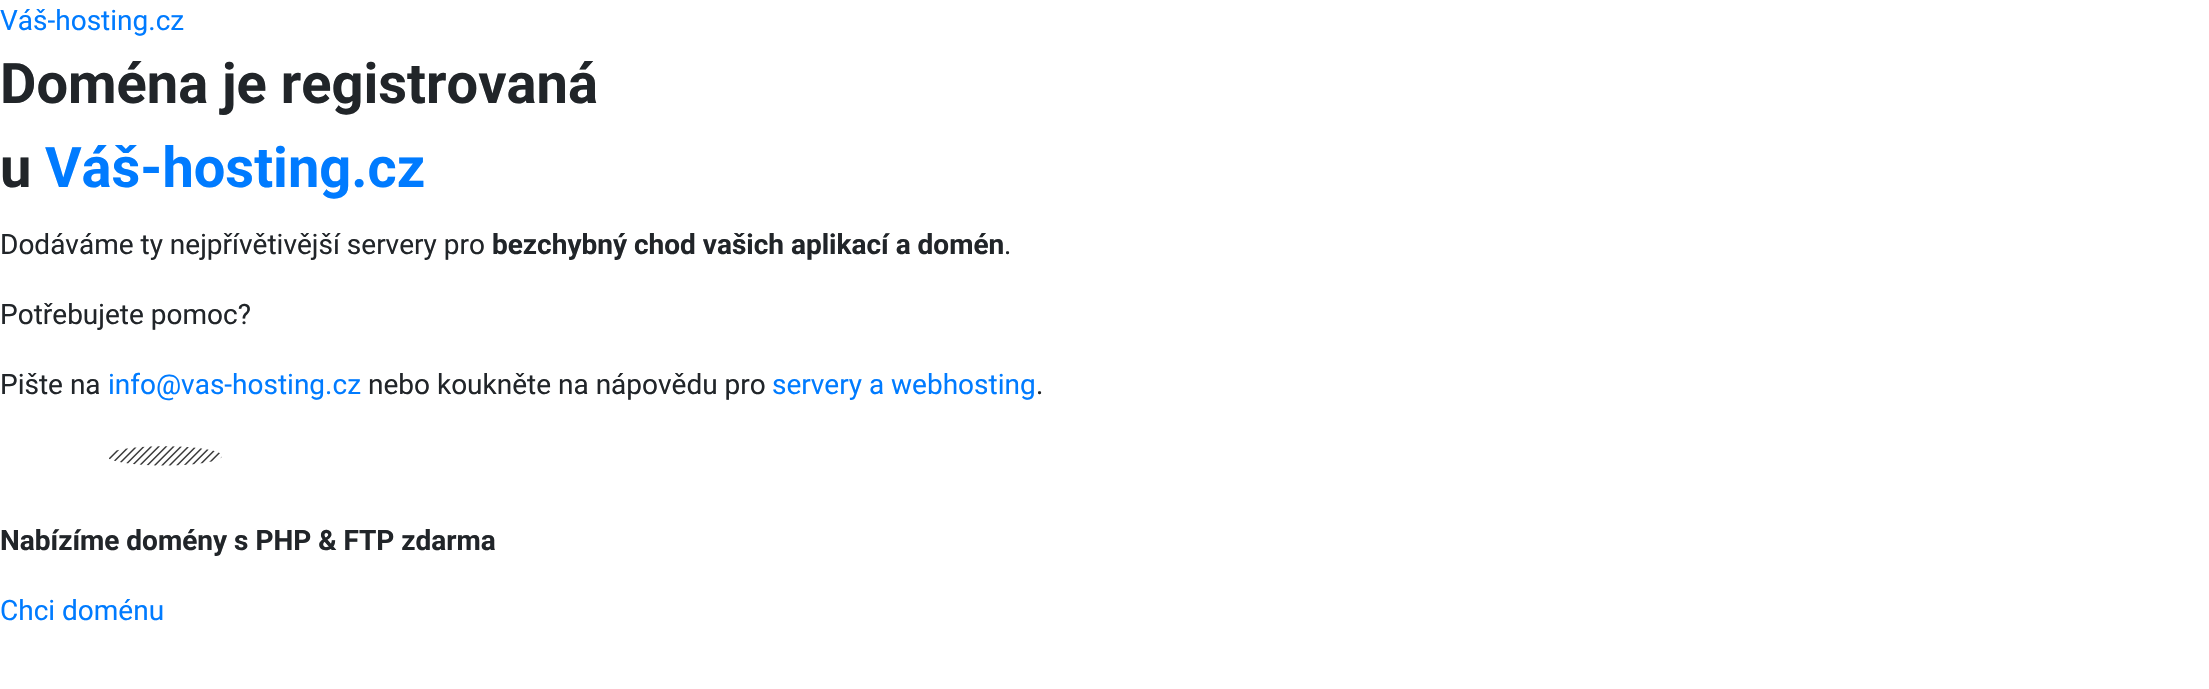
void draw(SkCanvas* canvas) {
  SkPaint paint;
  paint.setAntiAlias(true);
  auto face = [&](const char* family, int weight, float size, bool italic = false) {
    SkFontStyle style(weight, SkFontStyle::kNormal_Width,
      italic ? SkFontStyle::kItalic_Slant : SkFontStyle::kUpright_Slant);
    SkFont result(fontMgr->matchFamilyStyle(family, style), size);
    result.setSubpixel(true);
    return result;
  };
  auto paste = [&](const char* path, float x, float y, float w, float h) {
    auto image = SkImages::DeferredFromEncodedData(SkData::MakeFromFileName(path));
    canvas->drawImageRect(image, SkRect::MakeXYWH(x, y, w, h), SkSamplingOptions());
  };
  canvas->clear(0xffffffff);
  paste("img/1.png", 109, 446, 113, 20);
  auto f0 = face("Roboto", 400, 28);
  paint.setColor(0xff007bff);
  canvas->drawString("Váš-hosting.cz", 0, 30, f0, paint);
  auto f1 = face("Roboto", 700, 56);
  paint.setColor(0xff212529);
  canvas->drawString("Doména je registrovaná", 0, 103, f1, paint);
  canvas->drawString("u", 0, 187, f1, paint);
  paint.setColor(0xff007bff);
  canvas->drawString("Váš-hosting.cz", 45, 187, f1, paint);
  paint.setColor(0xff212529);
  canvas->drawString("Dodáváme ty nejpřívětivější servery pro", 0, 254, f0, paint);
  auto f2 = face("Roboto", 700, 28);
  canvas->drawString("bezchybný chod vašich aplikací a domén", 492, 254, f2, paint);
  {
    const struct { const char* s; float x, y; } items[] = {
      {".", 1004, 254},
      {"Potřebujete pomoc?", 0, 324},
      {"Pište na", 0, 394},
    };
    for (auto [s, x, y] : items) {
      canvas->drawString(s, x, y, f0, paint);
    }
  }
  paint.setColor(0xff007bff);
  canvas->drawString("info@vas-hosting.cz", 108, 394, f0, paint);
  paint.setColor(0xff212529);
  canvas->drawString("nebo koukněte na nápovědu pro", 368, 394, f0, paint);
  paint.setColor(0xff007bff);
  canvas->drawString("servery a webhosting", 772, 394, f0, paint);
  paint.setColor(0xff212529);
  canvas->drawString(".", 1036, 394, f0, paint);
  canvas->drawString("Nabízíme domény s PHP & FTP zdarma", 0, 550, f2, paint);
  paint.setColor(0xff007bff);
  canvas->drawString("Chci doménu", 0, 620, f0, paint);
}
